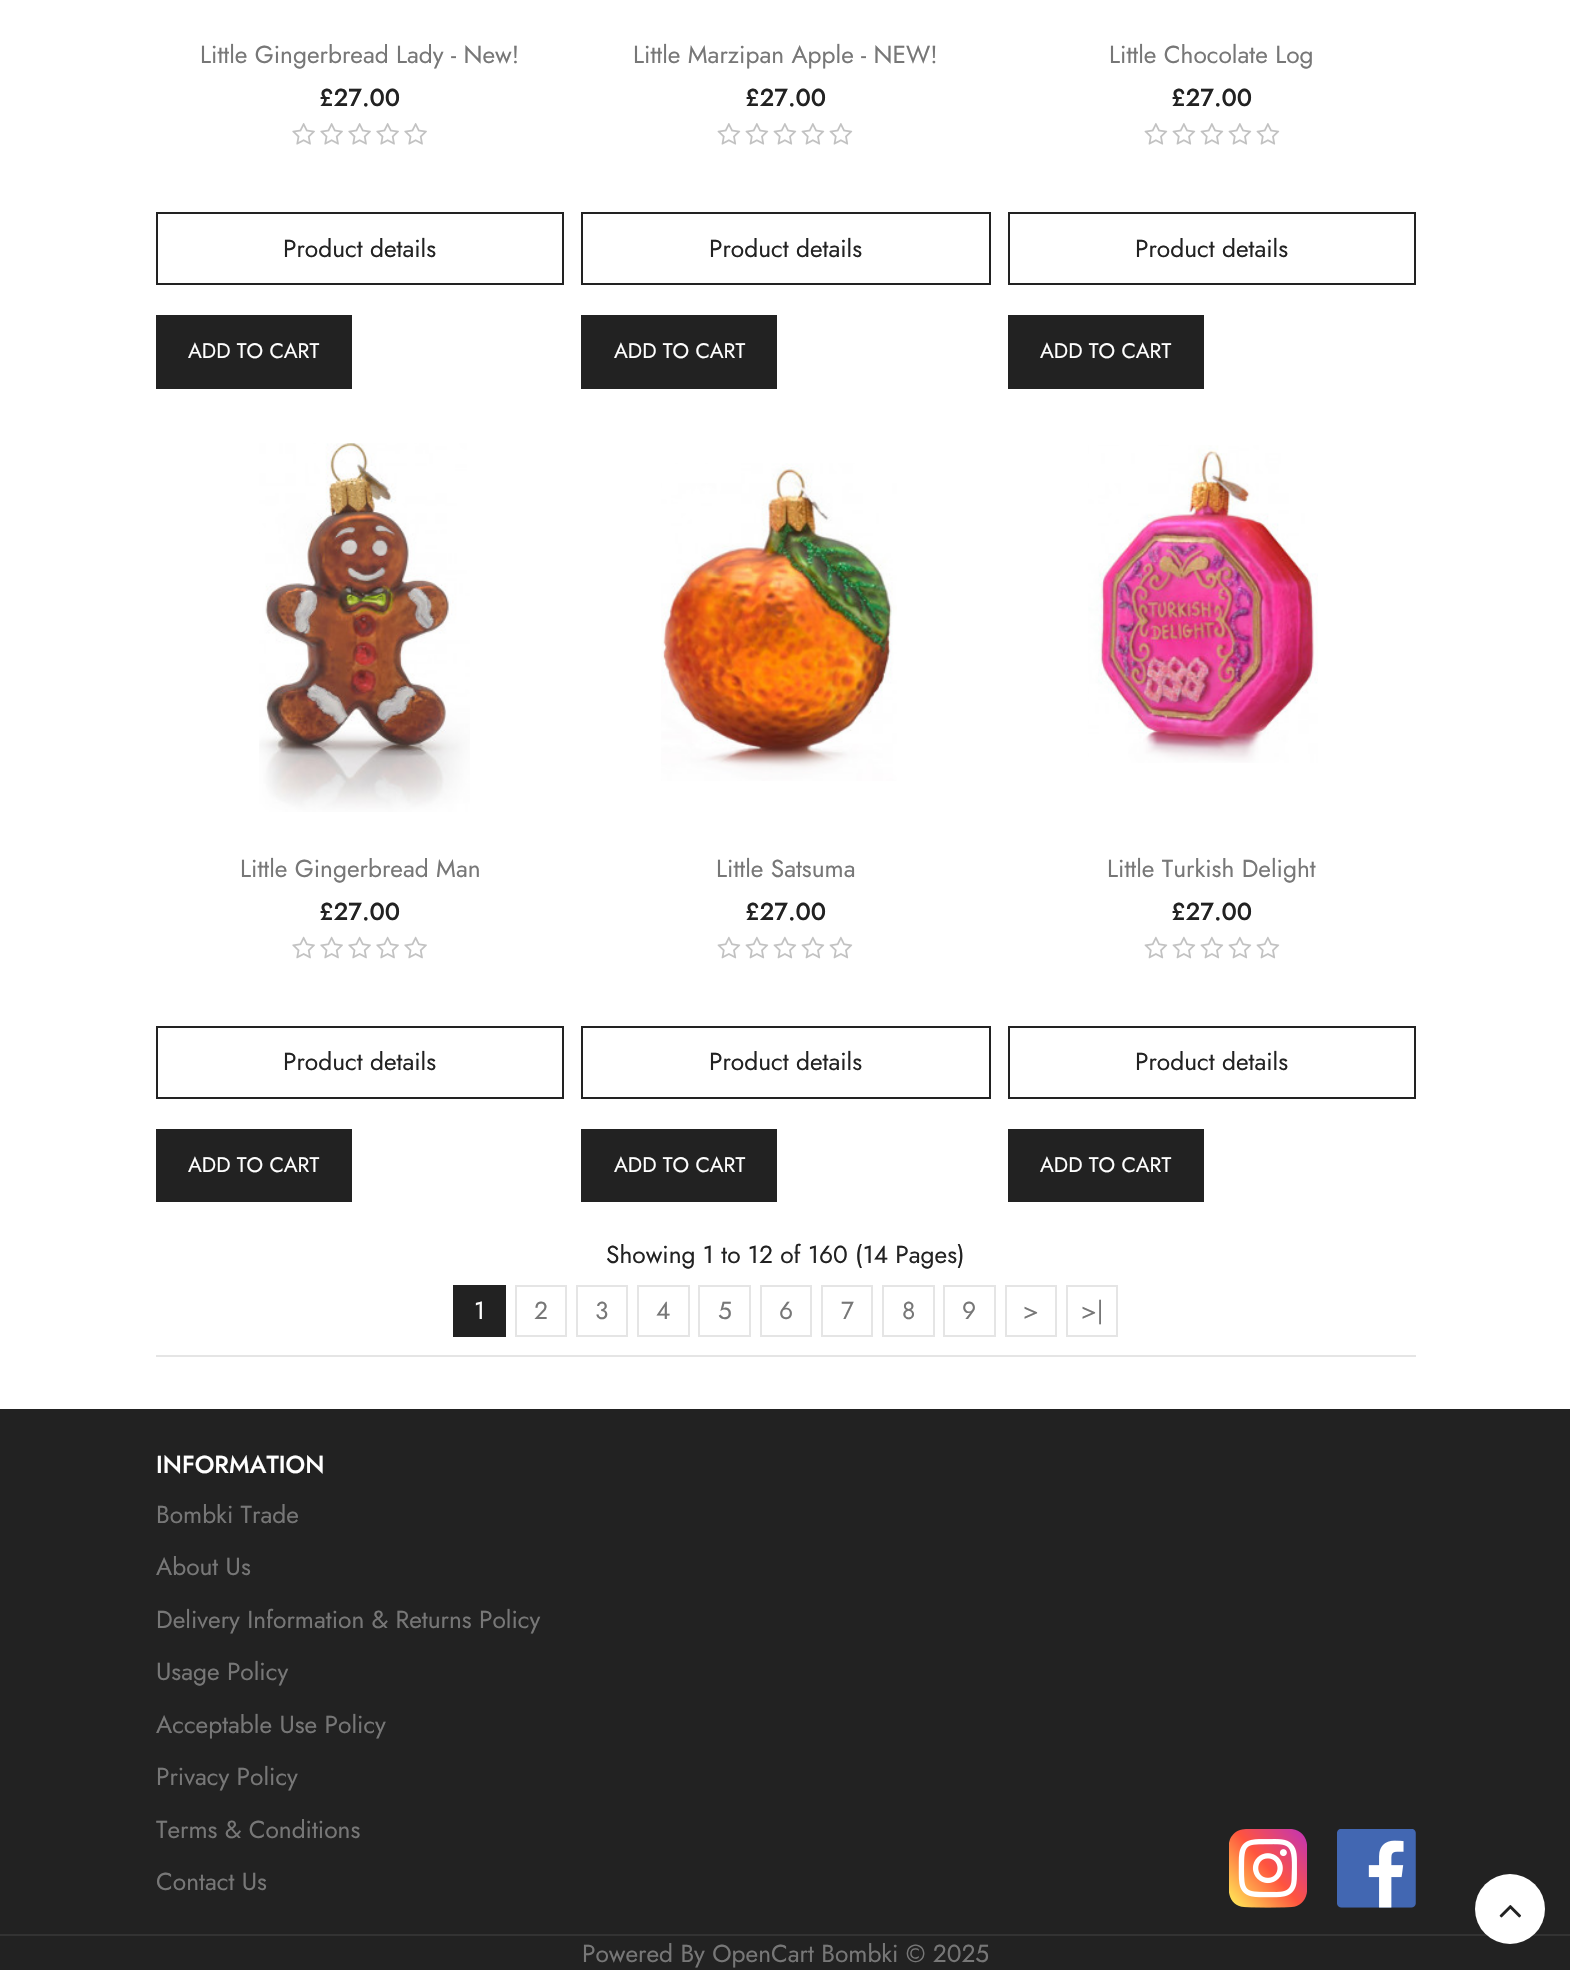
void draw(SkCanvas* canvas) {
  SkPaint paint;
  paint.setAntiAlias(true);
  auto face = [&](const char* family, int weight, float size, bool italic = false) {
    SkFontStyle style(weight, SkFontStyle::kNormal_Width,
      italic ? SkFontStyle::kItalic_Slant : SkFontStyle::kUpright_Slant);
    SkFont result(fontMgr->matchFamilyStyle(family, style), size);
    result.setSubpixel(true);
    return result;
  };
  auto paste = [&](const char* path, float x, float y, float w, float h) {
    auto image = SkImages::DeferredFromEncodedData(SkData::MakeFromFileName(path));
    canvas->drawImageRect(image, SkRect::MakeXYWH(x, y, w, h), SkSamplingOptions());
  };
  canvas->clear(0xffffffff);
  paste("img/1.png", 292, 123, 23, 22);
  paste("img/1.png", 320, 123, 23, 22);
  paste("img/1.png", 348, 123, 23, 22);
  paste("img/1.png", 376, 123, 23, 22);
  paste("img/1.png", 404, 123, 23, 22);
  paint.setStroke(true);
  paint.setStrokeWidth(2);
  paint.setColor(0xff222222);
  canvas->drawRect(SkRect::MakeXYWH(157, 213, 406, 71), paint);
  paint.setStroke(false);
  canvas->drawRect(SkRect::MakeXYWH(156, 315, 196, 74), paint);
  paste("img/2.png", 717, 123, 24, 22);
  paste("img/2.png", 745, 123, 24, 22);
  paste("img/2.png", 773, 123, 24, 22);
  paste("img/2.png", 801, 123, 24, 22);
  paste("img/2.png", 829, 123, 24, 22);
  paint.setStroke(true);
  canvas->drawRect(SkRect::MakeXYWH(582, 213, 408, 71), paint);
  paint.setStroke(false);
  canvas->drawRect(SkRect::MakeXYWH(581, 315, 196, 74), paint);
  paste("img/2.png", 1144, 123, 24, 22);
  paste("img/2.png", 1172, 123, 24, 22);
  paste("img/2.png", 1200, 123, 24, 22);
  paste("img/2.png", 1228, 123, 24, 22);
  paste("img/2.png", 1256, 123, 24, 22);
  paint.setStroke(true);
  canvas->drawRect(SkRect::MakeXYWH(1009, 213, 406, 71), paint);
  paint.setStroke(false);
  canvas->drawRect(SkRect::MakeXYWH(1008, 315, 196, 74), paint);
  paste("img/3.png", 259, 443, 211, 369);
  paste("img/4.png", 292, 936, 23, 23);
  paste("img/4.png", 320, 936, 23, 23);
  paste("img/4.png", 348, 936, 23, 23);
  paste("img/4.png", 376, 936, 23, 23);
  paste("img/4.png", 404, 936, 23, 23);
  paint.setStroke(true);
  canvas->drawRect(SkRect::MakeXYWH(157, 1027, 406, 71), paint);
  paint.setStroke(false);
  canvas->drawRect(SkRect::MakeXYWH(156, 1129, 196, 73), paint);
  paste("img/5.png", 661, 463, 236, 318);
  paste("img/6.png", 717, 936, 24, 23);
  paste("img/6.png", 745, 936, 24, 23);
  paste("img/6.png", 773, 936, 24, 23);
  paste("img/6.png", 801, 936, 24, 23);
  paste("img/6.png", 829, 936, 24, 23);
  paint.setStroke(true);
  canvas->drawRect(SkRect::MakeXYWH(582, 1027, 408, 71), paint);
  paint.setStroke(false);
  canvas->drawRect(SkRect::MakeXYWH(581, 1129, 196, 73), paint);
  paste("img/7.png", 1088, 445, 230, 318);
  paste("img/6.png", 1144, 936, 24, 23);
  paste("img/6.png", 1172, 936, 24, 23);
  paste("img/6.png", 1200, 936, 24, 23);
  paste("img/6.png", 1228, 936, 24, 23);
  paste("img/6.png", 1256, 936, 24, 23);
  paint.setStroke(true);
  canvas->drawRect(SkRect::MakeXYWH(1009, 1027, 406, 71), paint);
  paint.setStroke(false);
  {
    const struct { float x, y, w, h; SkColor color; } items[] = {
      {1008, 1129, 196, 73, 0xff222222},
      {156, 1355, 1260, 2, 0xffe5e5e5},
      {453, 1285, 53, 52, 0xff222222},
    };
    for (auto [x, y, w, h, color] : items) {
      paint.setColor(color);
      canvas->drawRect(SkRect::MakeXYWH(x, y, w, h), paint);
    }
  }
  paint.setStroke(true);
  paint.setColor(0xffe5e5e5);
  canvas->drawRect(SkRect::MakeXYWH(516, 1286, 50, 50), paint);
  canvas->drawRect(SkRect::MakeXYWH(577, 1286, 50, 50), paint);
  canvas->drawRect(SkRect::MakeXYWH(638, 1286, 51, 50), paint);
  canvas->drawRect(SkRect::MakeXYWH(699, 1286, 51, 50), paint);
  canvas->drawRect(SkRect::MakeXYWH(761, 1286, 50, 50), paint);
  canvas->drawRect(SkRect::MakeXYWH(822, 1286, 50, 50), paint);
  canvas->drawRect(SkRect::MakeXYWH(883, 1286, 51, 50), paint);
  canvas->drawRect(SkRect::MakeXYWH(944, 1286, 51, 50), paint);
  canvas->drawRect(SkRect::MakeXYWH(1006, 1286, 50, 50), paint);
  canvas->drawRect(SkRect::MakeXYWH(1067, 1286, 50, 50), paint);
  paint.setStroke(false);
  paint.setColor(0xff222222);
  canvas->drawRect(SkRect::MakeXYWH(0, 1409, 1570, 561), paint);
  paste("img/8.png", 1229, 1829, 78, 79);
  paste("img/9.png", 1337, 1829, 79, 79);
  paint.setColor(0xff333333);
  canvas->drawRect(SkRect::MakeXYWH(0, 1934, 1570, 2), paint);
  paint.setColor(0xffffffff);
  canvas->drawCircle(1510, 1909, 35, paint);
  paste("img/10.png", 1499, 1905, 22, 13);
  auto f0 = face("Jost", 400, 24.5f);
  paint.setColor(0xff777777);
  canvas->drawString("Little Gingerbread Lady - New!", 200, 63, f0, paint);
  auto f1 = face("Jost", 500, 24.5f);
  paint.setColor(0xff222222);
  canvas->drawString("£27.00", 319, 106, f1, paint);
  canvas->drawString("Product details", 283, 257, f0, paint);
  auto f2 = face("Jost", 400, 21);
  paint.setColor(0xffffffff);
  canvas->drawString("ADD TO CART", 188, 358, f2, paint);
  paint.setColor(0xff777777);
  canvas->drawString("Little Marzipan Apple - NEW!", 633, 63, f0, paint);
  paint.setColor(0xff222222);
  canvas->drawString("£27.00", 745, 106, f1, paint);
  canvas->drawString("Product details", 709, 257, f0, paint);
  paint.setColor(0xffffffff);
  canvas->drawString("ADD TO CART", 614, 358, f2, paint);
  paint.setColor(0xff777777);
  canvas->drawString("Little Chocolate Log", 1109, 63, f0, paint);
  paint.setColor(0xff222222);
  canvas->drawString("£27.00", 1171, 106, f1, paint);
  canvas->drawString("Product details", 1135, 257, f0, paint);
  paint.setColor(0xffffffff);
  canvas->drawString("ADD TO CART", 1040, 358, f2, paint);
  paint.setColor(0xff777777);
  canvas->drawString("Little Gingerbread Man", 240, 877, f0, paint);
  paint.setColor(0xff222222);
  canvas->drawString("£27.00", 319, 920, f1, paint);
  canvas->drawString("Product details", 283, 1070, f0, paint);
  paint.setColor(0xffffffff);
  canvas->drawString("ADD TO CART", 188, 1172, f2, paint);
  paint.setColor(0xff777777);
  canvas->drawString("Little Satsuma", 716, 877, f0, paint);
  paint.setColor(0xff222222);
  canvas->drawString("£27.00", 745, 920, f1, paint);
  canvas->drawString("Product details", 709, 1070, f0, paint);
  paint.setColor(0xffffffff);
  canvas->drawString("ADD TO CART", 614, 1172, f2, paint);
  paint.setColor(0xff777777);
  canvas->drawString("Little Turkish Delight", 1107, 877, f0, paint);
  paint.setColor(0xff222222);
  canvas->drawString("£27.00", 1171, 920, f1, paint);
  canvas->drawString("Product details", 1135, 1070, f0, paint);
  paint.setColor(0xffffffff);
  canvas->drawString("ADD TO CART", 1040, 1172, f2, paint);
  paint.setColor(0xff222222);
  canvas->drawString("Showing 1 to 12 of 160 (14 Pages)", 606, 1263, f0, paint);
  paint.setColor(0xffffffff);
  canvas->drawString("1", 474, 1319, f0, paint);
  paint.setColor(0xff777777);
  {
    const struct { const char* s; float x, y; } items[] = {
      {"2", 534, 1319},
      {"3", 595, 1319},
      {"4", 656, 1319},
      {"5", 718, 1319},
      {"6", 779, 1319},
      {"7", 841, 1319},
      {"8", 902, 1319},
      {"9", 962, 1319},
      {">", 1023, 1319},
      {">|", 1081, 1319},
    };
    for (auto [s, x, y] : items) {
      canvas->drawString(s, x, y, f0, paint);
    }
  }
  paint.setColor(0xffffffff);
  canvas->drawString("INFORMATION", 156, 1473, f1, paint);
  paint.setColor(0xff777777);
  {
    const struct { const char* s; float x, y; } items[] = {
      {"Bombki Trade", 156, 1523},
      {"About Us", 156, 1575},
      {"Delivery Information & Returns Policy", 156, 1628},
      {"Usage Policy", 156, 1680},
      {"Acceptable Use Policy", 156, 1733},
      {"Privacy Policy", 156, 1785},
      {"Terms & Conditions", 156, 1838},
      {"Contact Us", 156, 1890},
      {"Powered By OpenCart Bombki © 2025", 582, 1962},
    };
    for (auto [s, x, y] : items) {
      canvas->drawString(s, x, y, f0, paint);
    }
  }
}
